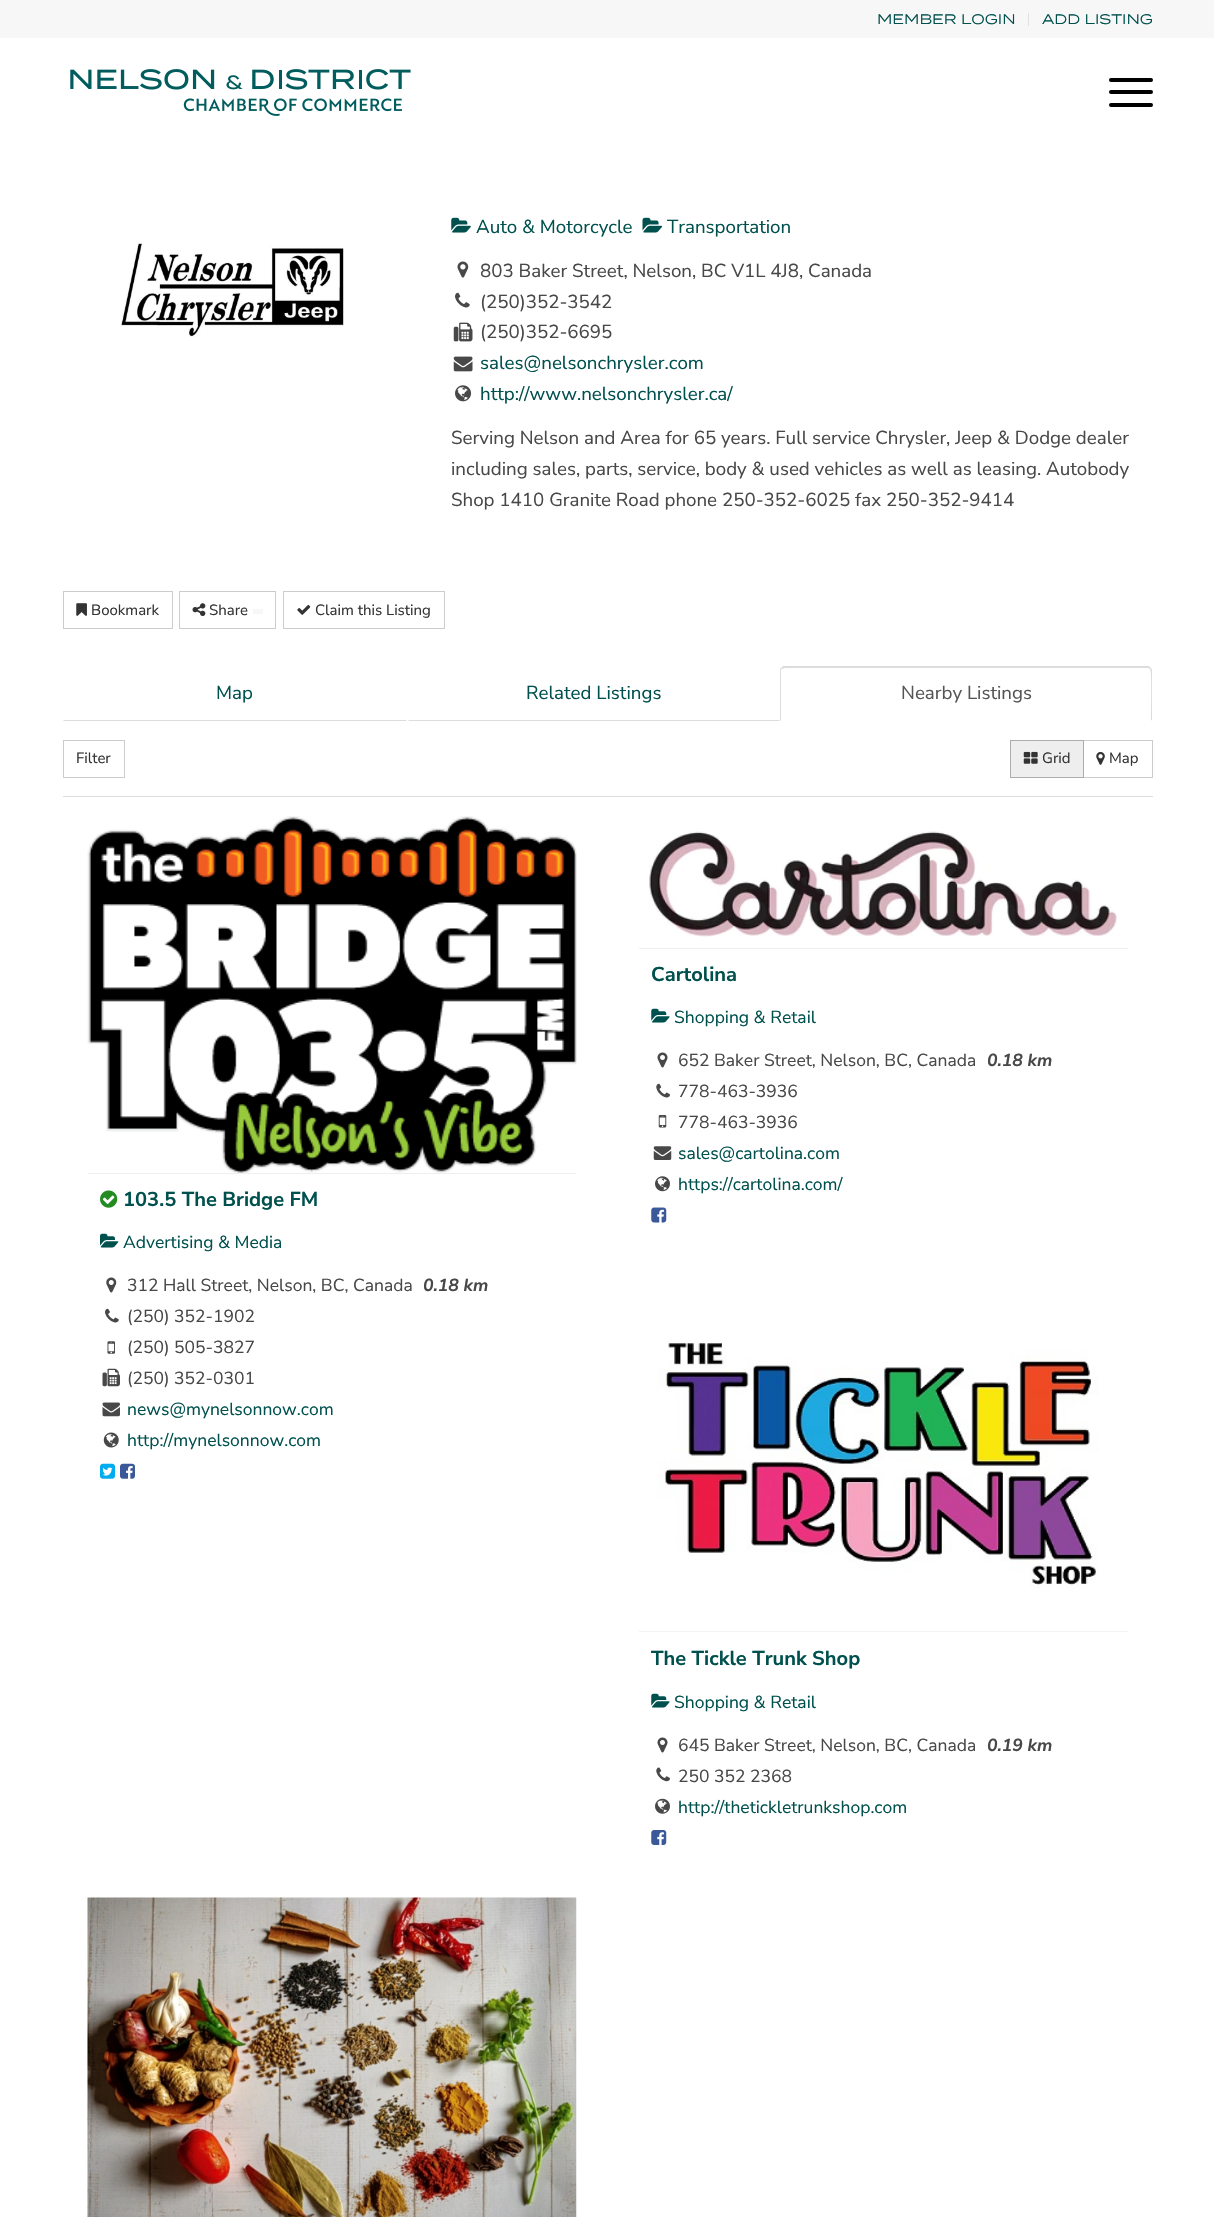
void draw(SkCanvas* canvas) {
  SkPaint paint;
  paint.setAntiAlias(true);
  auto face = [&](const char* family, int weight, float size, bool italic = false) {
    SkFontStyle style(weight, SkFontStyle::kNormal_Width,
      italic ? SkFontStyle::kItalic_Slant : SkFontStyle::kUpright_Slant);
    SkFont result(fontMgr->matchFamilyStyle(family, style), size);
    result.setSubpixel(true);
    return result;
  };
  auto paste = [&](const char* path, float x, float y, float w, float h) {
    auto image = SkImages::DeferredFromEncodedData(SkData::MakeFromFileName(path));
    canvas->drawImageRect(image, SkRect::MakeXYWH(x, y, w, h), SkSamplingOptions());
  };
  auto shape = [&](const char* data, bool evenOdd = false) {
    SkPath result = *SkParsePath::FromSVGString(data);
    if (evenOdd) result.setFillType(SkPathFillType::kEvenOdd);
    return result;
  };
  canvas->clear(0xffffffff);
  paint.setColor(0xfff7f7f7);
  canvas->drawRect(SkRect::MakeXYWH(0, 0, 1214, 38), paint);
  paint.setColor(0xffe1e1e1);
  canvas->drawRect(SkRect::MakeXYWH(1028, 13, 1, 13), paint);
  paste("img/1.png", 70, 69, 341, 47);
  paint.setColor(0xff000000);
  canvas->drawRoundRect(SkRect::MakeXYWH(1109, 90, 44, 4), 2, 2, paint);
  canvas->drawRoundRect(SkRect::MakeXYWH(1109, 78, 44, 4), 2, 2, paint);
  canvas->drawRoundRect(SkRect::MakeXYWH(1109, 103, 44, 4), 2, 2, paint);
  paste("img/2.png", 121, 243, 223, 94);
  paste("img/3.png", 451, 217, 20, 16);
  paste("img/4.png", 642, 217, 21, 16);
  paste("img/5.png", 457, 261, 12, 17);
  paste("img/6.png", 455, 292, 15, 16);
  paste("img/7.png", 453, 322, 20, 20);
  paste("img/8.png", 453, 356, 20, 16);
  paste("img/9.png", 455, 385, 17, 17);
  paint.setStroke(true);
  paint.setStrokeWidth(1);
  paint.setColor(0xffcccccc);
  canvas->drawRect(SkRect::MakeXYWH(63.5f, 591.5f, 109, 37), paint);
  paste("img/10.png", 76, 603, 11, 13);
  canvas->drawRect(SkRect::MakeXYWH(179.5f, 591.5f, 96, 37), paint);
  paste("img/11.png", 192, 603, 14, 14);
  paint.setStroke(false);
  paint.setColor(0xfff7f7f7);
  canvas->drawRect(SkRect::MakeXYWH(253, 609, 10, 5), paint);
  paint.setStroke(true);
  paint.setColor(0xffcccccc);
  canvas->drawRect(SkRect::MakeXYWH(283.5f, 591.5f, 161, 37), paint);
  paste("img/12.png", 297, 605, 14, 10);
  paint.setStroke(false);
  paint.setColor(0xffdddddd);
  canvas->drawPath(shape("M407 721H63L64 720H406Z"), paint);
  canvas->drawPath(shape("M780 721H408L409 720H779Z"), paint);
  canvas->drawPath(shape("M785 668L782 669L781 668L783 666H1149L1151 668L1150 669L1148 668Z"), paint);
  canvas->drawPath(shape("M1151 668C1152 669 1152 670 1152 671V721L1151 720C1151 714 1152 670 1150 669Z"), paint);
  paint.setColor(0xffffffff);
  canvas->drawPath(shape("M1152 721H780L781 720H1151Z"), paint);
  paint.setColor(0xffdddddd);
  canvas->drawPath(shape("M780 671V721L781 720V670L782 669L781 668C780 668 780 670 780 671Z"), paint);
  canvas->drawRect(SkRect::MakeXYWH(63, 796, 1090, 1), paint);
  paint.setStroke(true);
  paint.setColor(0xffcccccc);
  canvas->drawRect(SkRect::MakeXYWH(63.5f, 740.5f, 61, 37), paint);
  canvas->drawRect(SkRect::MakeXYWH(1083.5f, 740.5f, 69, 37), paint);
  paint.setStroke(false);
  paint.setColor(0xffeeeeee);
  canvas->drawRect(SkRect::MakeXYWH(1010.5f, 740.5f, 73, 37), paint);
  paint.setStroke(true);
  paint.setColor(0xffadadad);
  canvas->drawRect(SkRect::MakeXYWH(1010.5f, 740.5f, 73, 37), paint);
  paste("img/13.png", 1023, 751, 15, 13);
  paste("img/14.png", 1096, 752, 9, 13);
  paste("img/15.png", 649, 831, 468, 106);
  paint.setStroke(false);
  paint.setColor(0xffefefef);
  canvas->drawRect(SkRect::MakeXYWH(639, 948, 489, 1), paint);
  paste("img/16.png", 651, 1008, 19, 15);
  paste("img/17.png", 657, 1052, 11, 16);
  paste("img/18.png", 656, 1083, 14, 15);
  paste("img/19.png", 658, 1115, 9, 13);
  paste("img/20.png", 653, 1146, 19, 14);
  paste("img/21.png", 655, 1176, 15, 16);
  paste("img/22.png", 651, 1207, 16, 16);
  paste("img/23.png", 87, 816, 490, 357);
  canvas->drawRect(SkRect::MakeXYWH(88, 1173, 488, 1), paint);
  paste("img/24.png", 100, 1190, 18, 18);
  paste("img/25.png", 100, 1233, 19, 15);
  paste("img/26.png", 106, 1277, 11, 16);
  paste("img/27.png", 105, 1308, 14, 15);
  paste("img/28.png", 107, 1341, 8, 13);
  paste("img/29.png", 102, 1368, 18, 19);
  paste("img/30.png", 102, 1402, 18, 15);
  paste("img/31.png", 103, 1432, 16, 16);
  paste("img/32.png", 100, 1463, 15, 16);
  paste("img/33.png", 120, 1463, 15, 16);
  canvas->drawRect(SkRect::MakeXYWH(639, 1631, 489, 1), paint);
  paste("img/34.png", 639, 1343, 488, 289);
  paste("img/16.png", 651, 1693, 19, 15);
  paste("img/17.png", 657, 1737, 11, 16);
  paste("img/35.png", 656, 1767, 14, 15);
  paste("img/36.png", 655, 1798, 15, 16);
  paste("img/37.png", 651, 1830, 16, 15);
  paste("img/38.png", 87, 1897, 490, 320);
  auto f0 = face("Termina", 400, 13.75f);
  paint.setColor(0xff00514e);
  canvas->drawString("MEMBER LOGIN", 877, 24, f0, paint);
  canvas->drawString("ADD LISTING", 1042, 24, f0, paint);
  auto f1 = face("Nunito Sans", 400, 18.75f);
  canvas->drawString("Auto & Motorcycle", 476, 233, f1, paint);
  canvas->drawString("Transportation", 667, 233, f1, paint);
  paint.setColor(0xff484848);
  {
    const struct { const char* s; float x, y; } items[] = {
      {"803 Baker Street, Nelson, BC V1L 4J8, Canada", 480, 277},
      {"(250)352-3542", 480, 308},
      {"(250)352-6695", 480, 338},
    };
    for (auto [s, x, y] : items) {
      canvas->drawString(s, x, y, f1, paint);
    }
  }
  paint.setColor(0xff00514e);
  canvas->drawString("sales@nelsonchrysler.com", 480, 369, f1, paint);
  canvas->drawString("http://www.nelsonchrysler.ca/", 480, 400, f1, paint);
  paint.setColor(0xff484848);
  {
    const struct { const char* s; float x, y; } items[] = {
      {"Serving Nelson and Area for 65 years. Full service Chrysler, Jeep & Dodge dealer", 451, 444},
      {"including sales, parts, service, body & used vehicles as well as leasing. Autobody", 451, 475},
      {"Shop 1410 Granite Road phone 250-352-6025 fax 250-352-9414", 451, 506},
    };
    for (auto [s, x, y] : items) {
      canvas->drawString(s, x, y, f1, paint);
    }
  }
  auto f2 = face("Nunito Sans", 400, 15);
  paint.setColor(0xff333333);
  {
    const struct { const char* s; float x, y; } items[] = {
      {"Bookmark", 91, 615},
      {"Share", 209, 615},
      {"Claim this Listing", 315, 615},
    };
    for (auto [s, x, y] : items) {
      canvas->drawString(s, x, y, f2, paint);
    }
  }
  paint.setColor(0xff00514e);
  canvas->drawString("Map", 216, 699, f1, paint);
  canvas->drawString("Related Listings", 526, 699, f1, paint);
  paint.setColor(0xff555555);
  canvas->drawString("Nearby Listings", 901, 699, f1, paint);
  paint.setColor(0xff333333);
  {
    const struct { const char* s; float x, y; } items[] = {
      {"Filter", 76, 763},
      {"Grid", 1042, 763},
      {"Map", 1109, 763},
    };
    for (auto [s, x, y] : items) {
      canvas->drawString(s, x, y, f2, paint);
    }
  }
  auto f3 = face("Nunito Sans", 700, 20.1f);
  paint.setColor(0xff00514e);
  canvas->drawString("Cartolina", 651, 981, f3, paint);
  auto f4 = face("Nunito Sans", 400, 17.5f);
  canvas->drawString("Shopping & Retail", 674, 1023, f4, paint);
  paint.setColor(0xff484848);
  canvas->drawString("652 Baker Street, Nelson, BC, Canada", 678, 1066, f4, paint);
  auto f5 = face("Nunito Sans", 700, 17.5f, true);
  canvas->drawString("0.18 km", 987, 1066, f5, paint);
  canvas->drawString("778-463-3936", 678, 1097, f4, paint);
  canvas->drawString("778-463-3936", 678, 1128, f4, paint);
  paint.setColor(0xff00514e);
  canvas->drawString("sales@cartolina.com", 678, 1159, f4, paint);
  canvas->drawString("https://cartolina.com/", 678, 1190, f4, paint);
  canvas->drawString("103.5 The Bridge FM", 123, 1206, f3, paint);
  canvas->drawString("Advertising & Media", 123, 1248, f4, paint);
  paint.setColor(0xff484848);
  canvas->drawString("312 Hall Street, Nelson, BC, Canada", 127, 1291, f4, paint);
  canvas->drawString("0.18 km", 423, 1291, f5, paint);
  {
    const struct { const char* s; float x, y; } items[] = {
      {"(250) 352-1902", 127, 1322},
      {"(250) 505-3827", 127, 1353},
      {"(250) 352-0301", 127, 1384},
    };
    for (auto [s, x, y] : items) {
      canvas->drawString(s, x, y, f4, paint);
    }
  }
  paint.setColor(0xff00514e);
  canvas->drawString("news@mynelsonnow.com", 127, 1415, f4, paint);
  canvas->drawString("http://mynelsonnow.com", 127, 1446, f4, paint);
  canvas->drawString("The Tickle Trunk Shop", 651, 1665, f3, paint);
  canvas->drawString("Shopping & Retail", 674, 1708, f4, paint);
  paint.setColor(0xff484848);
  canvas->drawString("645 Baker Street, Nelson, BC, Canada", 678, 1751, f4, paint);
  canvas->drawString("0.19 km", 987, 1751, f5, paint);
  canvas->drawString("250 352 2368", 678, 1782, f4, paint);
  paint.setColor(0xff00514e);
  canvas->drawString("http://thetickletrunkshop.com", 678, 1813, f4, paint);
}
